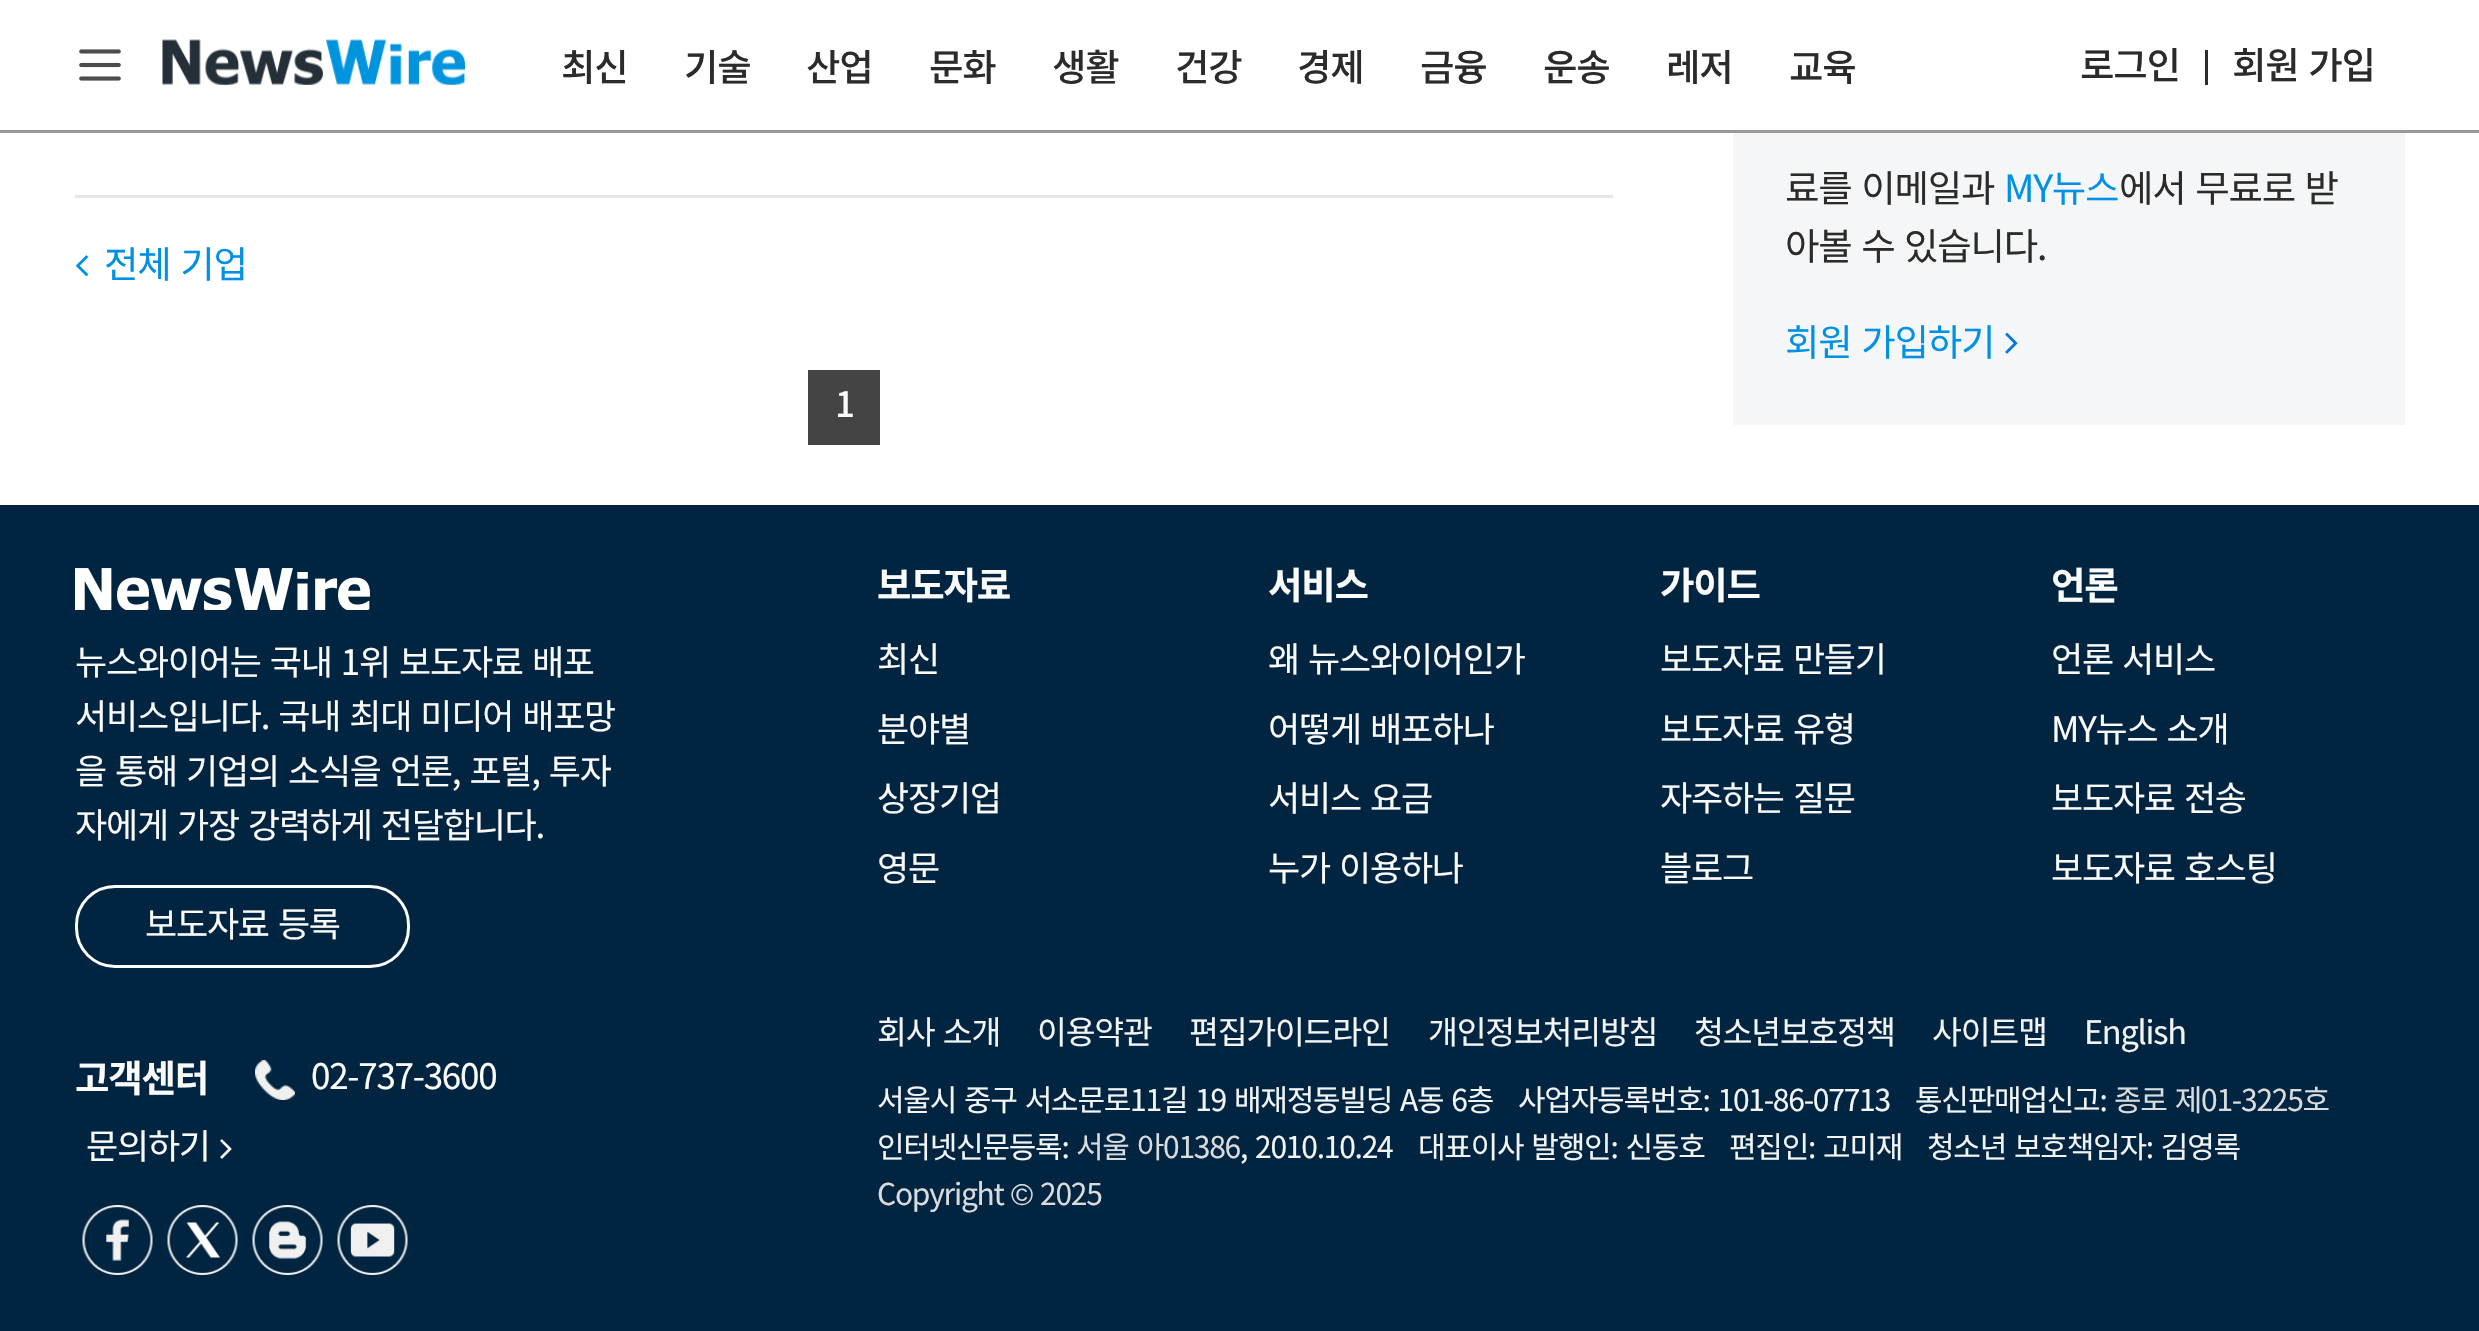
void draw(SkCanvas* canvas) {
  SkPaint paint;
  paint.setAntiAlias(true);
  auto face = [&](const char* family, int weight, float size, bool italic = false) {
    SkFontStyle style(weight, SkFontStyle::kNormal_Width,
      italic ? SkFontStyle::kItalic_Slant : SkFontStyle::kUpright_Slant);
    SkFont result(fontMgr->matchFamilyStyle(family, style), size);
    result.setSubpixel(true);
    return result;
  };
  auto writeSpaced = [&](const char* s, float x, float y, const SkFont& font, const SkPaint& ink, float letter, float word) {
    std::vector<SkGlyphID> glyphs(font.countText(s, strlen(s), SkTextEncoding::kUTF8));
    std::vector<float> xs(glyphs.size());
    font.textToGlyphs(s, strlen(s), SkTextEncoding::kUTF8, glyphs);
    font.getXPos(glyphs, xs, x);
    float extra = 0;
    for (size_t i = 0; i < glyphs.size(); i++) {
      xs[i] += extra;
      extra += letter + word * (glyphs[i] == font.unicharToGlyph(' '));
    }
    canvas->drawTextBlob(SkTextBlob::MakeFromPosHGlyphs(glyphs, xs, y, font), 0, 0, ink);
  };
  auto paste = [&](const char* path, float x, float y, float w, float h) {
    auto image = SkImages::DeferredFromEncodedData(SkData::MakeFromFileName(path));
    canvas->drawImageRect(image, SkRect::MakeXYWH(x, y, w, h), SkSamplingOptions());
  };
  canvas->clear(0xffffffff);
  paint.setColor(0xff999999);
  canvas->drawRect(SkRect::MakeXYWH(0, 130, 2479, 3), paint);
  paste("img/1.png", 79, 49, 42, 32);
  paste("img/2.png", 162, 39, 304, 46);
  paint.setColor(0xff2b2b2b);
  canvas->drawRect(SkRect::MakeXYWH(2205, 50, 3, 35), paint);
  paint.setColor(0xffe5e5e5);
  canvas->drawRect(SkRect::MakeXYWH(75, 195, 1538, 3), paint);
  paste("img/3.png", 76, 255, 13, 22);
  paint.setColor(0xff444444);
  canvas->drawRect(SkRect::MakeXYWH(808, 370, 72, 75), paint);
  paint.setColor(0xfff5f6f7);
  canvas->drawRect(SkRect::MakeXYWH(1733, 133, 672, 292), paint);
  paste("img/4.png", 2005, 332, 13, 22);
  paint.setColor(0xff012540);
  canvas->drawRect(SkRect::MakeXYWH(0, 505, 2479, 826), paint);
  paste("img/5.png", 75, 568, 295, 42);
  paint.setStroke(true);
  paint.setStrokeWidth(3);
  paint.setColor(0xffffffff);
  canvas->drawRoundRect(SkRect::MakeXYWH(76.5f, 886.5f, 332, 80), 38.5f, 38.5f, paint);
  paste("img/6.png", 255, 1060, 40, 40);
  paste("img/7.png", 220, 1139, 12, 20);
  paste("img/8.png", 82, 1205, 71, 70);
  paste("img/9.png", 167, 1205, 71, 70);
  paste("img/10.png", 252, 1205, 71, 70);
  paste("img/11.png", 337, 1205, 71, 70);
  auto f0 = face("Noto Sans KR", 500, 37.5f);
  paint.setStroke(false);
  paint.setColor(0xff2b2b2b);
  {
    const struct { const char* s; float x, y; } items[] = {
      {"최신", 561, 81},
      {"기술", 684, 81},
      {"산업", 806, 81},
      {"문화", 929, 81},
      {"생활", 1052, 81},
      {"건강", 1175, 81},
      {"경제", 1297, 81},
      {"금융", 1420, 81},
      {"운송", 1543, 81},
      {"레저", 1666, 81},
      {"교육", 1789, 81},
      {"로그인", 2080, 79},
    };
    for (auto [s, x, y] : items) {
      writeSpaced(s, x, y, f0, paint, -1.25f, 0);
    }
  }
  writeSpaced("회원 가입", 2232, 79, f0, paint, -1.25f, 2.5f);
  auto f1 = face("Noto Sans KR", 400, 37.5f);
  paint.setColor(0xff0091e6);
  writeSpaced("전체 기업", 104, 278, f1, paint, -1.25f, 2.5f);
  auto f2 = face("Noto Sans KR", 500, 35);
  paint.setColor(0xfffafafa);
  writeSpaced("1", 835, 417, f2, paint, -1.25f, 0);
  paint.setColor(0xff2b2b2b);
  writeSpaced("료를 이메일과", 1785, 202, f1, paint, -1.25f, 2.5f);
  paint.setColor(0xff0091e6);
  writeSpaced("MY뉴스", 2004, 202, f1, paint, -1.25f, 0);
  paint.setColor(0xff2b2b2b);
  writeSpaced("에서 무료로 받", 2119, 202, f1, paint, -1.25f, 2.5f);
  writeSpaced("아볼 수 있습니다.", 1785, 260, f1, paint, -1.25f, 2.5f);
  paint.setColor(0xff0091e6);
  writeSpaced("회원 가입하기", 1785, 356, f1, paint, -1.25f, 2.5f);
  auto f3 = face("Noto Sans KR", 400, 35);
  paint.setColor(0xfffafafa);
  {
    const struct { const char* s; float x, y; } items[] = {
      {"뉴스와이어는 국내 1위 보도자료 배포", 75, 675},
      {"서비스입니다. 국내 최대 미디어 배포망", 75, 729},
      {"을 통해 기업의 소식을 언론, 포털, 투자", 75, 784},
      {"자에게 가장 강력하게 전달합니다.", 75, 838},
      {"보도자료 등록", 145, 937},
    };
    for (auto [s, x, y] : items) {
      writeSpaced(s, x, y, f3, paint, -1.25f, 2.5f);
    }
  }
  auto f4 = face("Noto Sans KR", 700, 37.5f);
  writeSpaced("고객센터", 75, 1092, f4, paint, -1.25f, 0);
  writeSpaced("02-737-3600", 311, 1089, f3, paint, -1.25f, 0);
  writeSpaced("문의하기", 86, 1159, f3, paint, -1.25f, 0);
  writeSpaced("보도자료", 877, 599, f4, paint, -1.25f, 0);
  {
    const struct { const char* s; float x, y; } items[] = {
      {"최신", 877, 672},
      {"분야별", 877, 742},
      {"상장기업", 877, 811},
      {"영문", 877, 881},
    };
    for (auto [s, x, y] : items) {
      writeSpaced(s, x, y, f3, paint, -1.25f, 0);
    }
  }
  writeSpaced("서비스", 1268, 599, f4, paint, -1.25f, 0);
  {
    const struct { const char* s; float x, y; } items[] = {
      {"왜 뉴스와이어인가", 1268, 672},
      {"어떻게 배포하나", 1268, 742},
      {"서비스 요금", 1268, 811},
      {"누가 이용하나", 1268, 881},
    };
    for (auto [s, x, y] : items) {
      writeSpaced(s, x, y, f3, paint, -1.25f, 2.5f);
    }
  }
  writeSpaced("가이드", 1660, 599, f4, paint, -1.25f, 0);
  {
    const struct { const char* s; float x, y; } items[] = {
      {"보도자료 만들기", 1660, 672},
      {"보도자료 유형", 1660, 742},
      {"자주하는 질문", 1660, 811},
    };
    for (auto [s, x, y] : items) {
      writeSpaced(s, x, y, f3, paint, -1.25f, 2.5f);
    }
  }
  writeSpaced("블로그", 1660, 881, f3, paint, -1.25f, 0);
  writeSpaced("언론", 2051, 599, f4, paint, -1.25f, 0);
  {
    const struct { const char* s; float x, y; } items[] = {
      {"언론 서비스", 2051, 672},
      {"MY뉴스 소개", 2051, 742},
      {"보도자료 전송", 2051, 811},
      {"보도자료 호스팅", 2051, 881},
    };
    for (auto [s, x, y] : items) {
      writeSpaced(s, x, y, f3, paint, -1.25f, 2.5f);
    }
  }
  auto f5 = face("Noto Sans KR", 400, 32.5f);
  paint.setColor(0xfff2f4f5);
  writeSpaced("회사 소개", 877, 1044, f5, paint, -1.25f, 2.5f);
  {
    const struct { const char* s; float x, y; } items[] = {
      {"이용약관", 1037, 1044},
      {"편집가이드라인", 1189, 1044},
      {"개인정보처리방침", 1428, 1044},
      {"청소년보호정책", 1694, 1044},
      {"사이트맵", 1932, 1044},
      {"English", 2084, 1044},
    };
    for (auto [s, x, y] : items) {
      writeSpaced(s, x, y, f5, paint, -1.25f, 0);
    }
  }
  auto f6 = face("Noto Sans KR", 400, 30);
  writeSpaced("서울시 중구 서소문로11길 19 배재정동빌딩 A동 6층", 877, 1111, f6, paint, -1.25f, 2.5f);
  writeSpaced("사업자등록번호: 101-86-07713", 1518, 1111, f6, paint, -1.25f, 2.5f);
  writeSpaced("통신판매업신고:", 1915, 1111, f6, paint, -1.25f, 0);
  paint.setColor(0xffdadbdd);
  writeSpaced("종로 제01-3225호", 2114, 1111, f6, paint, -1.25f, 2.5f);
  paint.setColor(0xfff2f4f5);
  writeSpaced("인터넷신문등록:", 877, 1158, f6, paint, -1.25f, 0);
  paint.setColor(0xffdadbdd);
  writeSpaced("서울 아01386", 1076, 1158, f6, paint, -1.25f, 2.5f);
  paint.setColor(0xfff2f4f5);
  {
    const struct { const char* s; float x, y; } items[] = {
      {", 2010.10.24", 1240, 1158},
      {"대표이사 발행인: 신동호", 1418, 1158},
      {"편집인: 고미재", 1729, 1158},
      {"청소년 보호책임자: 김영록", 1927, 1158},
    };
    for (auto [s, x, y] : items) {
      writeSpaced(s, x, y, f6, paint, -1.25f, 2.5f);
    }
  }
  paint.setColor(0xffdadbdd);
  writeSpaced("Copyright", 877, 1205, f6, paint, -1.25f, 0);
  auto f7 = face("Liberation Sans", 400, 30);
  writeSpaced("©", 1011, 1205, f7, paint, -1.25f, 0);
  writeSpaced("2025", 1040, 1205, f6, paint, -1.25f, 0);
}
